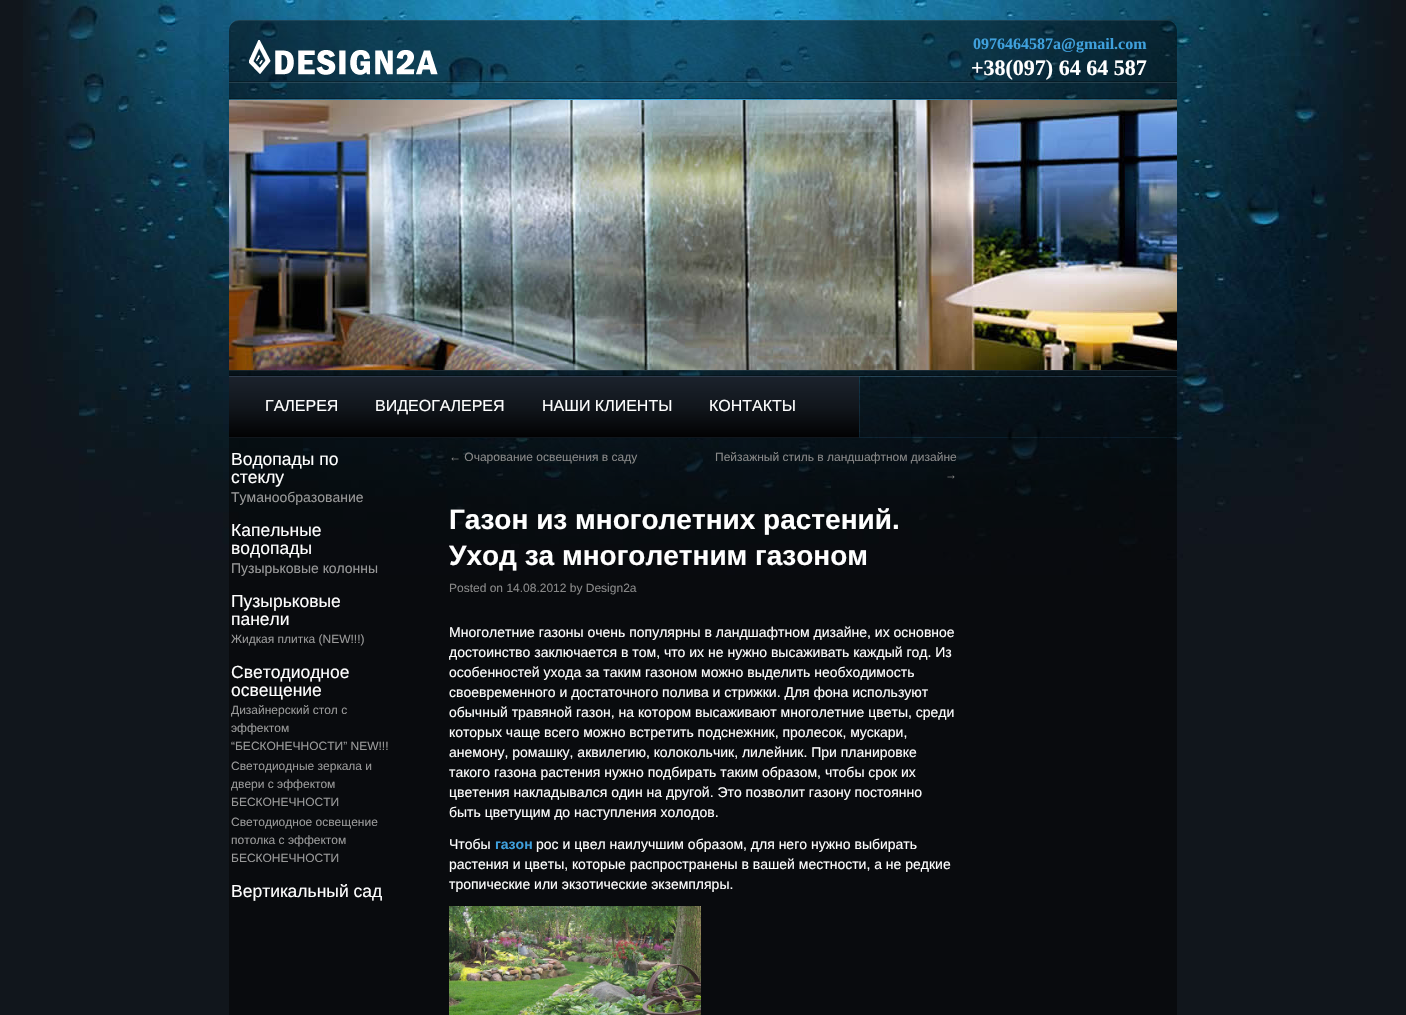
void draw(SkCanvas* canvas) {
  SkPaint paint;
  paint.setAntiAlias(true);
  auto face = [&](const char* family, int weight, float size, bool italic = false) {
    SkFontStyle style(weight, SkFontStyle::kNormal_Width,
      italic ? SkFontStyle::kItalic_Slant : SkFontStyle::kUpright_Slant);
    SkFont result(fontMgr->matchFamilyStyle(family, style), size);
    result.setSubpixel(true);
    return result;
  };
  auto paste = [&](const char* path, float x, float y, float w, float h) {
    auto image = SkImages::DeferredFromEncodedData(SkData::MakeFromFileName(path));
    canvas->drawImageRect(image, SkRect::MakeXYWH(x, y, w, h), SkSamplingOptions());
  };
  auto shape = [&](const char* data, bool evenOdd = false) {
    SkPath result = *SkParsePath::FromSVGString(data);
    if (evenOdd) result.setFillType(SkPathFillType::kEvenOdd);
    return result;
  };
  canvas->clear(0xff11161c);
  paste("img/1.png", 23, 0, 1370, 575);
  paint.setColor(0x14ffffff);
  canvas->drawRect(SkRect::MakeXYWH(229, 82, 948, 1), paint);
  paste("img/2.png", 229, 20, 948, 62);
  canvas->drawPath(shape("M239 20C233 20 229 24 229 30C229 25 233 21 239 21H1167C1173 21 1177 25 1177 30C1177 24 1173 20 1167 20Z"), paint);
  paint.setColor(0x4d000000);
  canvas->drawRect(SkRect::MakeXYWH(229, 81, 948, 1), paint);
  paste("img/3.png", 249, 40, 189, 35);
  {
    const struct { float x, y, w, h; SkColor color; } items[] = {
      {229, 99, 948, 1, 0x14ffffff},
      {229, 82, 948, 17, 0x80000000},
      {229, 82, 948, 1, 0x14ffffff},
      {229, 98, 948, 1, 0x4d000000},
    };
    for (auto [x, y, w, h, color] : items) {
      paint.setColor(color);
      canvas->drawRect(SkRect::MakeXYWH(x, y, w, h), paint);
    }
  }
  paste("img/4.png", 229, 100, 948, 270);
  {
    const struct { float x, y, w, h; SkColor color; } items[] = {
      {859, 376, 318, 1, 0x14ffffff},
      {229, 370, 948, 6, 0x80000000},
      {229, 370, 948, 1, 0x14ffffff},
      {229, 375, 948, 1, 0x4d000000},
    };
    for (auto [x, y, w, h, color] : items) {
      paint.setColor(color);
      canvas->drawRect(SkRect::MakeXYWH(x, y, w, h), paint);
    }
  }
  {
    const SkColor colors[] = {0xff1b222c, 0xff11161c, 0xff020203};
    const float stops[] = {0, 0.5f, 1};
    const SkPoint ends[] = {{544, 377}, {544, 437}};
    paint.setShader(SkGradientShader::MakeLinear(ends, colors, stops, 3, SkTileMode::kClamp));
    paint.setAlpha(255);
  }
  canvas->drawRect(SkRect::MakeXYWH(229, 377, 630, 60), paint);
  paint.setShader(nullptr);
  {
    const struct { float x, y, w, h; SkColor color; } items[] = {
      {229, 376, 630, 1, 0xff2e3b4c},
      {229, 437, 630, 1, 0xff11161c},
      {860, 377, 317, 60, 0x80000000},
      {229, 438, 948, 577, 0x80000000},
    };
    for (auto [x, y, w, h, color] : items) {
      paint.setColor(color);
      canvas->drawRect(SkRect::MakeXYWH(x, y, w, h), paint);
    }
  }
  paste("img/5.png", 449, 906, 252, 109);
  auto f0 = face("Liberation Serif", 700, 16);
  paint.setColor(0xff3fa0dc);
  canvas->drawString("0976464587a@gmail.com", 973, 49, f0, paint);
  auto f1 = face("Liberation Serif", 700, 22);
  paint.setColor(0xffffffff);
  canvas->drawString("+38(097) 64 64 587", 971, 75, f1, paint);
  auto f2 = face("Liberation Sans", 400, 16);
  {
    const struct { const char* s; float x, y; } items[] = {
      {"ГАЛЕРЕЯ", 265, 411},
      {"ВИДЕОГАЛЕРЕЯ", 375, 411},
      {"НАШИ КЛИЕНТЫ", 542, 411},
      {"КОНТАКТЫ", 709, 411},
    };
    for (auto [s, x, y] : items) {
      canvas->drawString(s, x, y, f2, paint);
    }
  }
  auto f3 = face("Liberation Sans", 400, 17.5f);
  canvas->drawString("Водопады по", 231, 465, f3, paint);
  canvas->drawString("стеклу", 231, 483, f3, paint);
  auto f4 = face("Liberation Sans", 400, 14);
  paint.setColor(0xff999999);
  canvas->drawString("Туманообразование", 231, 502, f4, paint);
  paint.setColor(0xffffffff);
  canvas->drawString("Капельные", 231, 536, f3, paint);
  canvas->drawString("водопады", 231, 554, f3, paint);
  paint.setColor(0xff999999);
  canvas->drawString("Пузырьковые колонны", 231, 573, f4, paint);
  paint.setColor(0xffffffff);
  canvas->drawString("Пузырьковые", 231, 607, f3, paint);
  canvas->drawString("панели", 231, 625, f3, paint);
  auto f5 = face("Liberation Sans", 400, 12);
  paint.setColor(0xff999999);
  canvas->drawString("Жидкая плитка (NEW!!!)", 231, 643, f5, paint);
  paint.setColor(0xffffffff);
  canvas->drawString("Светодиодное", 231, 678, f3, paint);
  canvas->drawString("освещение", 231, 696, f3, paint);
  paint.setColor(0xff999999);
  {
    const struct { const char* s; float x, y; } items[] = {
      {"Дизайнерский стол с", 231, 714},
      {"эффектом", 231, 732},
      {"“БЕСКОНЕЧНОСТИ” NEW!!!", 231, 750},
      {"Светодиодные зеркала и", 231, 770},
      {"двери с эффектом", 231, 788},
      {"БЕСКОНЕЧНОСТИ", 231, 806},
      {"Светодиодное освещение", 231, 826},
      {"потолка с эффектом", 231, 844},
      {"БЕСКОНЕЧНОСТИ", 231, 862},
    };
    for (auto [s, x, y] : items) {
      canvas->drawString(s, x, y, f5, paint);
    }
  }
  paint.setColor(0xffffffff);
  canvas->drawString("Вертикальный сад", 231, 897, f3, paint);
  paint.setColor(0xff888888);
  {
    const struct { const char* s; float x, y; } items[] = {
      {"← Очарование освещения в саду", 449, 461},
      {"Пейзажный стиль в ландшафтном дизайне", 715, 461},
      {"→", 945, 479},
    };
    for (auto [s, x, y] : items) {
      canvas->drawString(s, x, y, f5, paint);
    }
  }
  auto f6 = face("Liberation Sans", 700, 28);
  paint.setColor(0xffffffff);
  canvas->drawString("Газон из многолетних растений.", 449, 529, f6, paint);
  canvas->drawString("Уход за многолетним газоном", 449, 565, f6, paint);
  paint.setColor(0xff888888);
  canvas->drawString("Posted on 14.08.2012 by Design2a", 449, 592, f5, paint);
  paint.setColor(0xffffffff);
  {
    const struct { const char* s; float x, y; } items[] = {
      {"Многолетние газоны очень популярны в ландшафтном дизайне, их основное", 449, 637},
      {"достоинство заключается в том, что их не нужно высаживать каждый год. Из", 449, 657},
      {"особенностей ухода за таким газоном можно выделить необходимость", 449, 677},
      {"своевременного и достаточного полива и стрижки. Для фона используют", 449, 697},
      {"обычный травяной газон, на котором высаживают многолетние цветы, среди", 449, 717},
      {"которых чаще всего можно встретить подснежник, пролесок, мускари,", 449, 737},
      {"анемону, ромашку, аквилегию, колокольчик, лилейник. При планировке", 449, 757},
      {"такого газона растения нужно подбирать таким образом, чтобы срок их", 449, 777},
      {"цветения накладывался один на другой. Это позволит газону постоянно", 449, 797},
      {"быть цветущим до наступления холодов.", 449, 817},
      {"Чтобы", 449, 849},
    };
    for (auto [s, x, y] : items) {
      canvas->drawString(s, x, y, f4, paint);
    }
  }
  auto f7 = face("Liberation Sans", 700, 14);
  paint.setColor(0xff3fa0dc);
  canvas->drawString("газон", 495, 849, f7, paint);
  paint.setColor(0xffffffff);
  {
    const struct { const char* s; float x, y; } items[] = {
      {"рос и цвел наилучшим образом, для него нужно выбирать", 536, 849},
      {"растения и цветы, которые распространены в вашей местности, а не редкие", 449, 869},
      {"тропические или экзотические экземпляры.", 449, 889},
    };
    for (auto [s, x, y] : items) {
      canvas->drawString(s, x, y, f4, paint);
    }
  }
}
